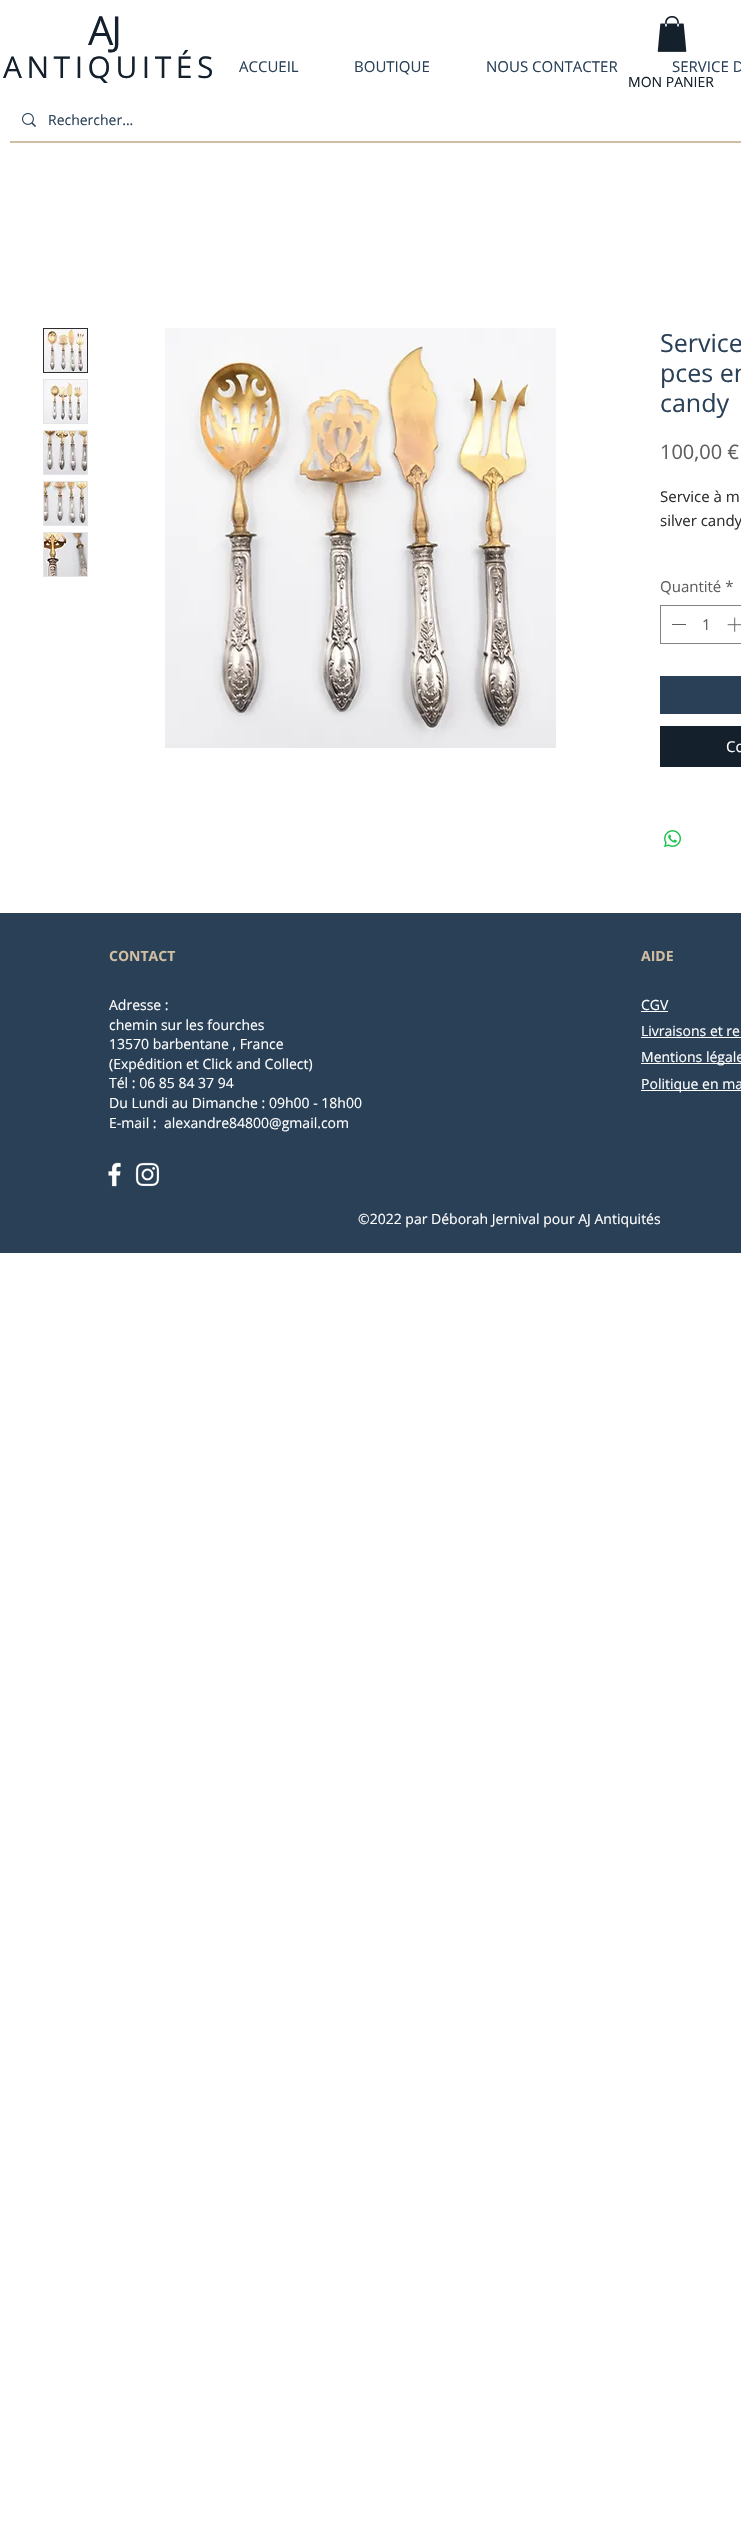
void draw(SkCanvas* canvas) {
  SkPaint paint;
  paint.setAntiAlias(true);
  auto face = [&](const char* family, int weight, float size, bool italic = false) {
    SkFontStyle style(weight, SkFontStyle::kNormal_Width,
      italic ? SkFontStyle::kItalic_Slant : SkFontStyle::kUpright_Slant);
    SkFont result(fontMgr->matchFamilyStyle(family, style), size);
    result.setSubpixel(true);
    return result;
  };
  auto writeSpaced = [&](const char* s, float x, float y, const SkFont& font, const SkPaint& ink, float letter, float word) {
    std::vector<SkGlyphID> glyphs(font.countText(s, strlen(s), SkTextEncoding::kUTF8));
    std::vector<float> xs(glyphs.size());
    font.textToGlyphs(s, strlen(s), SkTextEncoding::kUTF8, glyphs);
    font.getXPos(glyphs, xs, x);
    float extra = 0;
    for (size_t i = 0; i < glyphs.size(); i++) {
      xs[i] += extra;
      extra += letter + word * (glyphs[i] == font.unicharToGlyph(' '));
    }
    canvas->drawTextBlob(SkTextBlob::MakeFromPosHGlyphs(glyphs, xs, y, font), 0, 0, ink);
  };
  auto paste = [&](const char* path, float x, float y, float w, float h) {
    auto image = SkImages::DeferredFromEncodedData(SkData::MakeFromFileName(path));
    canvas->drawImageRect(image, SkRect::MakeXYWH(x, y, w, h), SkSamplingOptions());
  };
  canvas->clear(0xffffffff);
  paint.setColor(0xffd0bea2);
  canvas->drawRect(SkRect::MakeXYWH(10, 141, 731, 2), paint);
  paste("img/1.png", 22, 113, 14, 14);
  paste("img/2.png", 657, 16, 30, 36);
  paint.setStroke(true);
  paint.setStrokeWidth(1);
  paint.setColor(0xff2f2e2e);
  canvas->drawRect(SkRect::MakeXYWH(43.5f, 328.5f, 44, 44), paint);
  paste("img/3.png", 44, 329, 43, 43);
  paint.setColor(0xffe5e5e5);
  canvas->drawRect(SkRect::MakeXYWH(43.5f, 379.5f, 44, 44), paint);
  paste("img/4.png", 44, 380, 43, 43);
  canvas->drawRect(SkRect::MakeXYWH(43.5f, 430.5f, 44, 44), paint);
  paste("img/5.png", 44, 431, 43, 43);
  canvas->drawRect(SkRect::MakeXYWH(43.5f, 481.5f, 44, 44), paint);
  paste("img/6.png", 44, 482, 43, 43);
  canvas->drawRect(SkRect::MakeXYWH(43.5f, 532.5f, 44, 44), paint);
  paste("img/7.png", 44, 533, 43, 43);
  paste("img/8.png", 165, 328, 391, 420);
  paint.setColor(0xff828282);
  canvas->drawRect(SkRect::MakeXYWH(660.5f, 605.5f, 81, 38), paint);
  paint.setStroke(false);
  paint.setColor(0xff605e5e);
  canvas->drawRect(SkRect::MakeXYWH(672, 624, 14, 1), paint);
  paste("img/9.png", 727, 617, 14, 15);
  paint.setColor(0xff294057);
  canvas->drawRect(SkRect::MakeXYWH(660, 676, 81, 38), paint);
  paint.setColor(0xff14202c);
  canvas->drawRect(SkRect::MakeXYWH(660, 726, 81, 41), paint);
  paste("img/10.png", 664, 830, 17, 17);
  {
    const struct { float x, y, w, h; SkColor color; } items[] = {
      {0, 913, 741, 340, 0xff294057},
      {641, 1011, 27, 1, 0xffffffff},
      {641, 1037, 100, 1, 0xffffffff},
      {641, 1063, 100, 1, 0xffffffff},
      {641, 1090, 100, 1, 0xffffffff},
    };
    for (auto [x, y, w, h, color] : items) {
      paint.setColor(color);
      canvas->drawRect(SkRect::MakeXYWH(x, y, w, h), paint);
    }
  }
  paste("img/11.png", 108, 1162, 13, 25);
  paste("img/12.png", 135, 1162, 25, 25);
  auto f0 = face("Open Sans", 400, 40);
  paint.setColor(0xff14202c);
  writeSpaced("AJ", 88, 45, f0, paint, -2, 0);
  auto f1 = face("Open Sans", 400, 30);
  writeSpaced("ANTIQUITÉS", 3, 78, f1, paint, 4.5f, 0);
  auto f2 = face("Open Sans", 400, 15);
  paint.setColor(0xff294057);
  {
    const struct { const char* s; float x, y; } items[] = {
      {"ACCUEIL", 239, 72},
      {"BOUTIQUE", 354, 72},
      {"NOUS CONTACTER", 486, 72},
      {"SERVICE D", 672, 72},
    };
    for (auto [s, x, y] : items) {
      canvas->drawString(s, x, y, f2, paint);
    }
  }
  auto f3 = face("Open Sans", 400, 14);
  canvas->drawString("Rechercher...", 48, 125, f3, paint);
  paint.setColor(0xff14202c);
  canvas->drawString("MON PANIER", 628, 87, f3, paint);
  auto f4 = face("Open Sans", 400, 25);
  paint.setColor(0xff294057);
  {
    const struct { const char* s; float x, y; } items[] = {
      {"Service", 660, 352},
      {"pces en", 660, 382},
      {"candy", 660, 412},
    };
    for (auto [s, x, y] : items) {
      canvas->drawString(s, x, y, f4, paint);
    }
  }
  auto f5 = face("Open Sans", 400, 20);
  paint.setColor(0xff605e5e);
  canvas->drawString("100,00 €", 660, 459, f5, paint);
  paint.setColor(0xff2f2e2e);
  canvas->drawString("Service à m", 660, 502, f2, paint);
  canvas->drawString("silver candy", 660, 526, f2, paint);
  paint.setColor(0xff605e5e);
  canvas->drawString("Quantité *", 660, 592, f2, paint);
  canvas->drawString("1", 702, 630, f2, paint);
  paint.setColor(0xffffffff);
  canvas->drawString("Co", 726, 752, f2, paint);
  auto f6 = face("Open Sans", 700, 14);
  paint.setColor(0xffd0bea2);
  canvas->drawString("CONTACT", 109, 961, f6, paint);
  canvas->drawString("AIDE", 641, 961, f6, paint);
  paint.setColor(0xffffffff);
  {
    const struct { const char* s; float x, y; } items[] = {
      {"Adresse :", 109, 1010},
      {"chemin sur les fourches", 109, 1030},
      {"13570 barbentane , France", 109, 1049},
      {"(Expédition et Click and Collect)", 109, 1069},
      {"Tél : 06 85 84 37 94", 109, 1088},
      {"Du Lundi au Dimanche : 09h00 - 18h00", 109, 1108},
      {"E-mail :", 109, 1128},
      {"alexandre84800@gmail.com", 164, 1128},
      {"CGV", 641, 1010},
      {"Livraisons et re", 641, 1036},
      {"Mentions légale", 641, 1062},
      {"Politique en ma", 641, 1089},
      {"©2022 par Déborah Jernival pour AJ Antiquités", 358, 1224},
    };
    for (auto [s, x, y] : items) {
      canvas->drawString(s, x, y, f3, paint);
    }
  }
}
